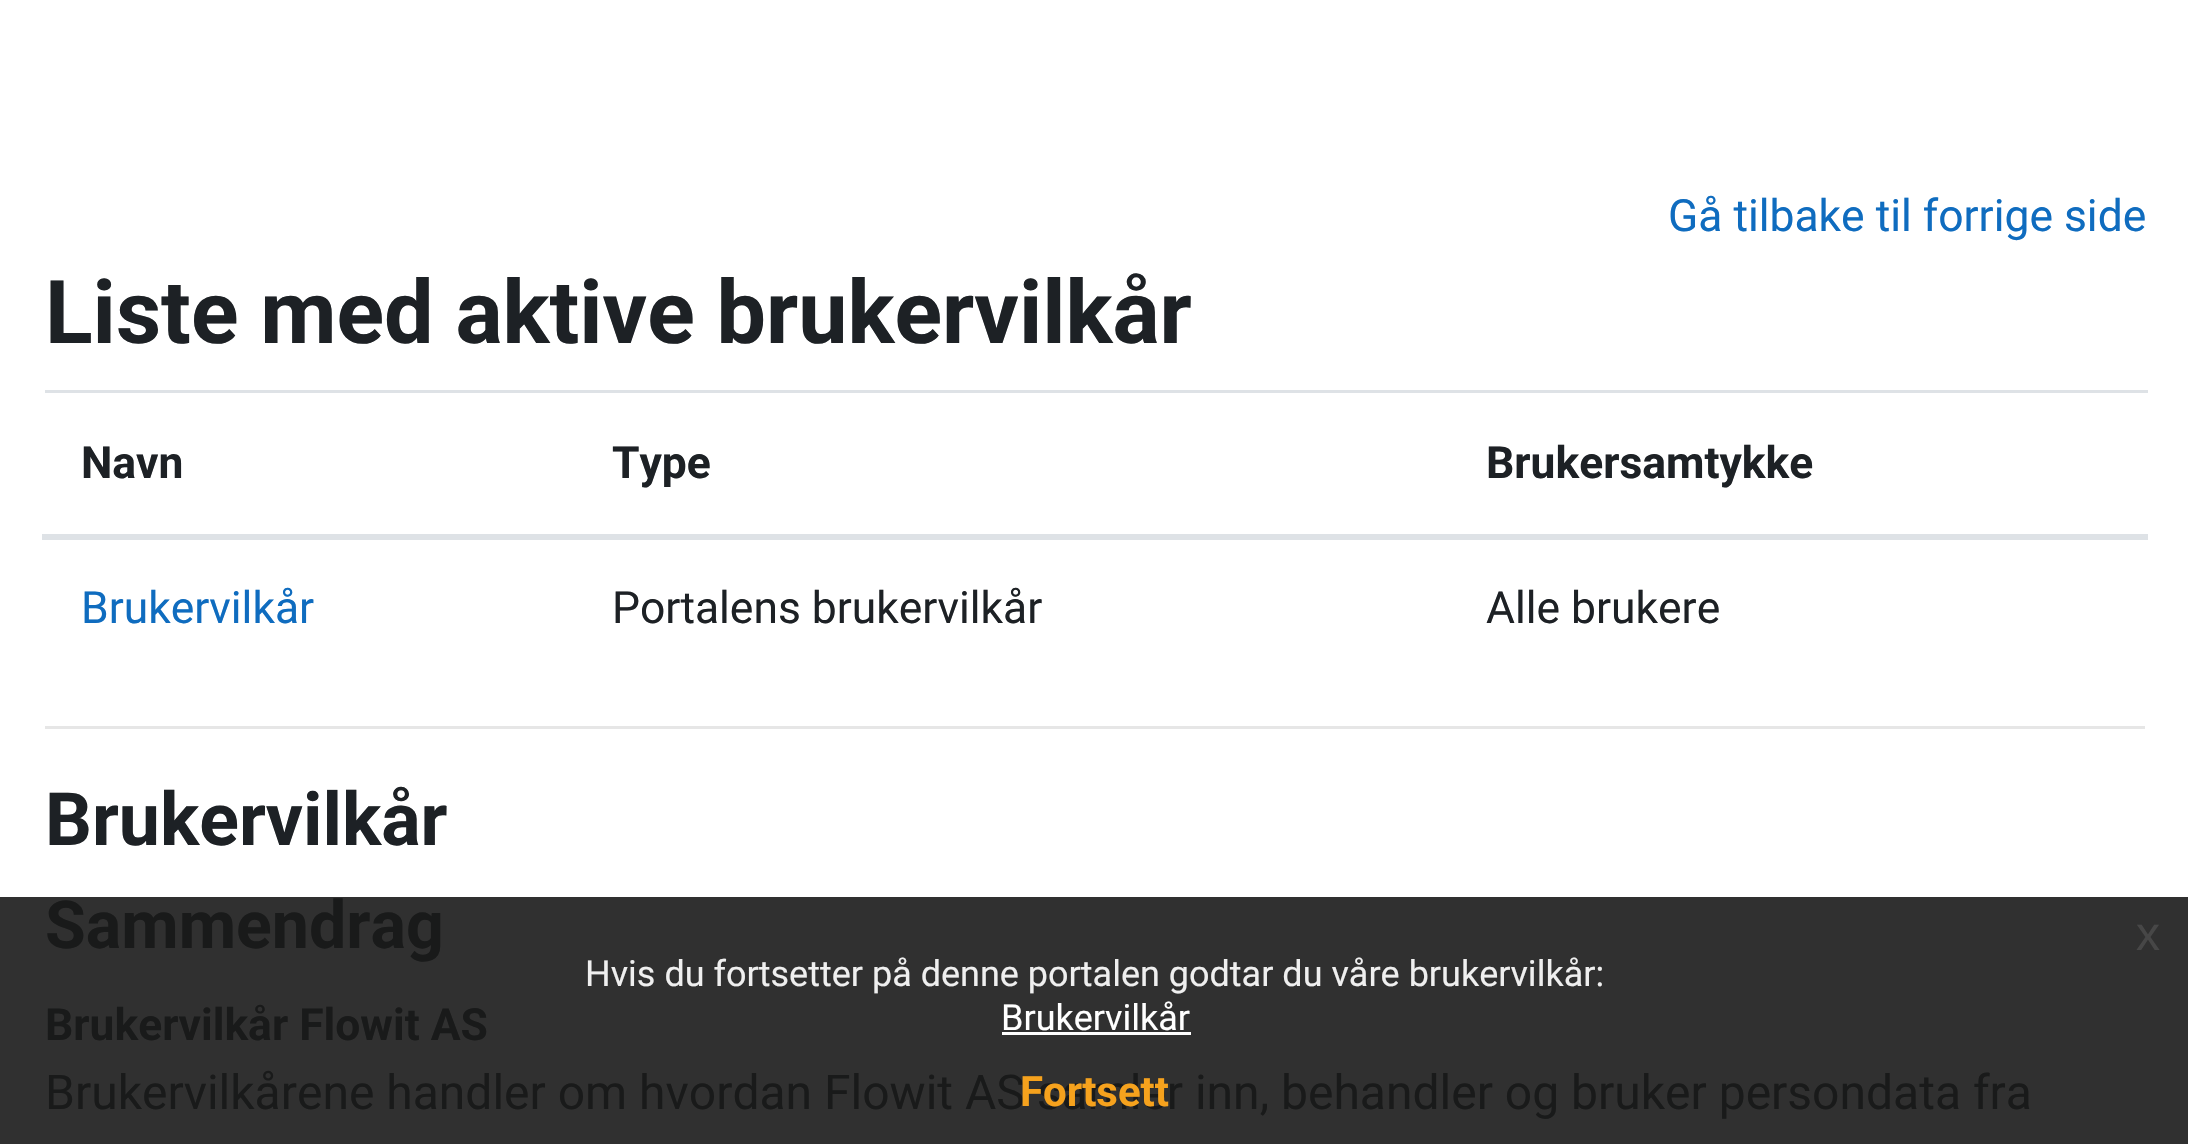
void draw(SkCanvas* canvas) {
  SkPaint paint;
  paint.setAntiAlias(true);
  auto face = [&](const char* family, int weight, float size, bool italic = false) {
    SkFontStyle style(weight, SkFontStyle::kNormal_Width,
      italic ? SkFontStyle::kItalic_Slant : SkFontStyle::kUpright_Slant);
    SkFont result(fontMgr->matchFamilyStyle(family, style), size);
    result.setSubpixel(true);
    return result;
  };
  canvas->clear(0xffffffff);
  {
    const struct { float x, y, w, h; SkColor color; } items[] = {
      {0, 897, 2188, 247, 0xff303030},
      {45, 390, 2103, 3, 0xffdee2e6},
      {42, 534, 2106, 6, 0xffdee2e6},
      {45, 726, 2100, 3, 0xffe6e6e6},
      {1002, 1032, 189, 3, 0xffffffff},
    };
    for (auto [x, y, w, h, color] : items) {
      paint.setColor(color);
      canvas->drawRect(SkRect::MakeXYWH(x, y, w, h), paint);
    }
  }
  auto f0 = face("Roboto", 400, 44.4f);
  paint.setColor(0xff0f6cbf);
  canvas->drawString("Gå tilbake til forrige side", 1668, 231, f0, paint);
  auto f1 = face("Roboto", 700, 88);
  paint.setColor(0xff1d2125);
  canvas->drawString("Liste med aktive brukervilkår", 45, 343, f1, paint);
  auto f2 = face("Roboto", 700, 44.4f);
  {
    const struct { const char* s; float x, y; } items[] = {
      {"Navn", 81, 478},
      {"Type", 612, 478},
      {"Brukersamtykke", 1486, 478},
    };
    for (auto [s, x, y] : items) {
      canvas->drawString(s, x, y, f2, paint);
    }
  }
  paint.setColor(0xff0f6cbf);
  canvas->drawString("Brukervilkår", 81, 623, f0, paint);
  paint.setColor(0xff1d2125);
  canvas->drawString("Portalens brukervilkår", 612, 623, f0, paint);
  canvas->drawString("Alle brukere", 1486, 623, f0, paint);
  auto f3 = face("Roboto", 700, 73.5f);
  canvas->drawString("Brukervilkår", 45, 845, f3, paint);
  auto f4 = face("Roboto", 700, 66.25f);
  paint.setColor(0xff191a1a);
  canvas->drawString("Sammendrag", 45, 948, f4, paint);
  canvas->drawString("Brukervilkår Flowit AS", 45, 1040, f2, paint);
  auto f5 = face("Roboto", 400, 48);
  canvas->drawString("Brukervilkårene handler om hvordan Flowit AS samler inn, behandler og bruker persondata fra", 45, 1109, f5, paint);
  auto f6 = face("Liberation Sans", 400, 48);
  paint.setColor(0xff474747);
  canvas->drawString("x", 2136, 950, f6, paint);
  auto f7 = face("Roboto", 400, 36);
  paint.setColor(0xffefefef);
  canvas->drawString("Hvis du fortsetter på denne portalen godtar du våre brukervilkår:", 585, 986, f7, paint);
  paint.setColor(0xffffffff);
  canvas->drawString("Brukervilkår", 1001, 1030, f7, paint);
  auto f8 = face("Roboto", 700, 42);
  paint.setColor(0xfff6a21d);
  canvas->drawString("Fortsett", 1020, 1106, f8, paint);
}
